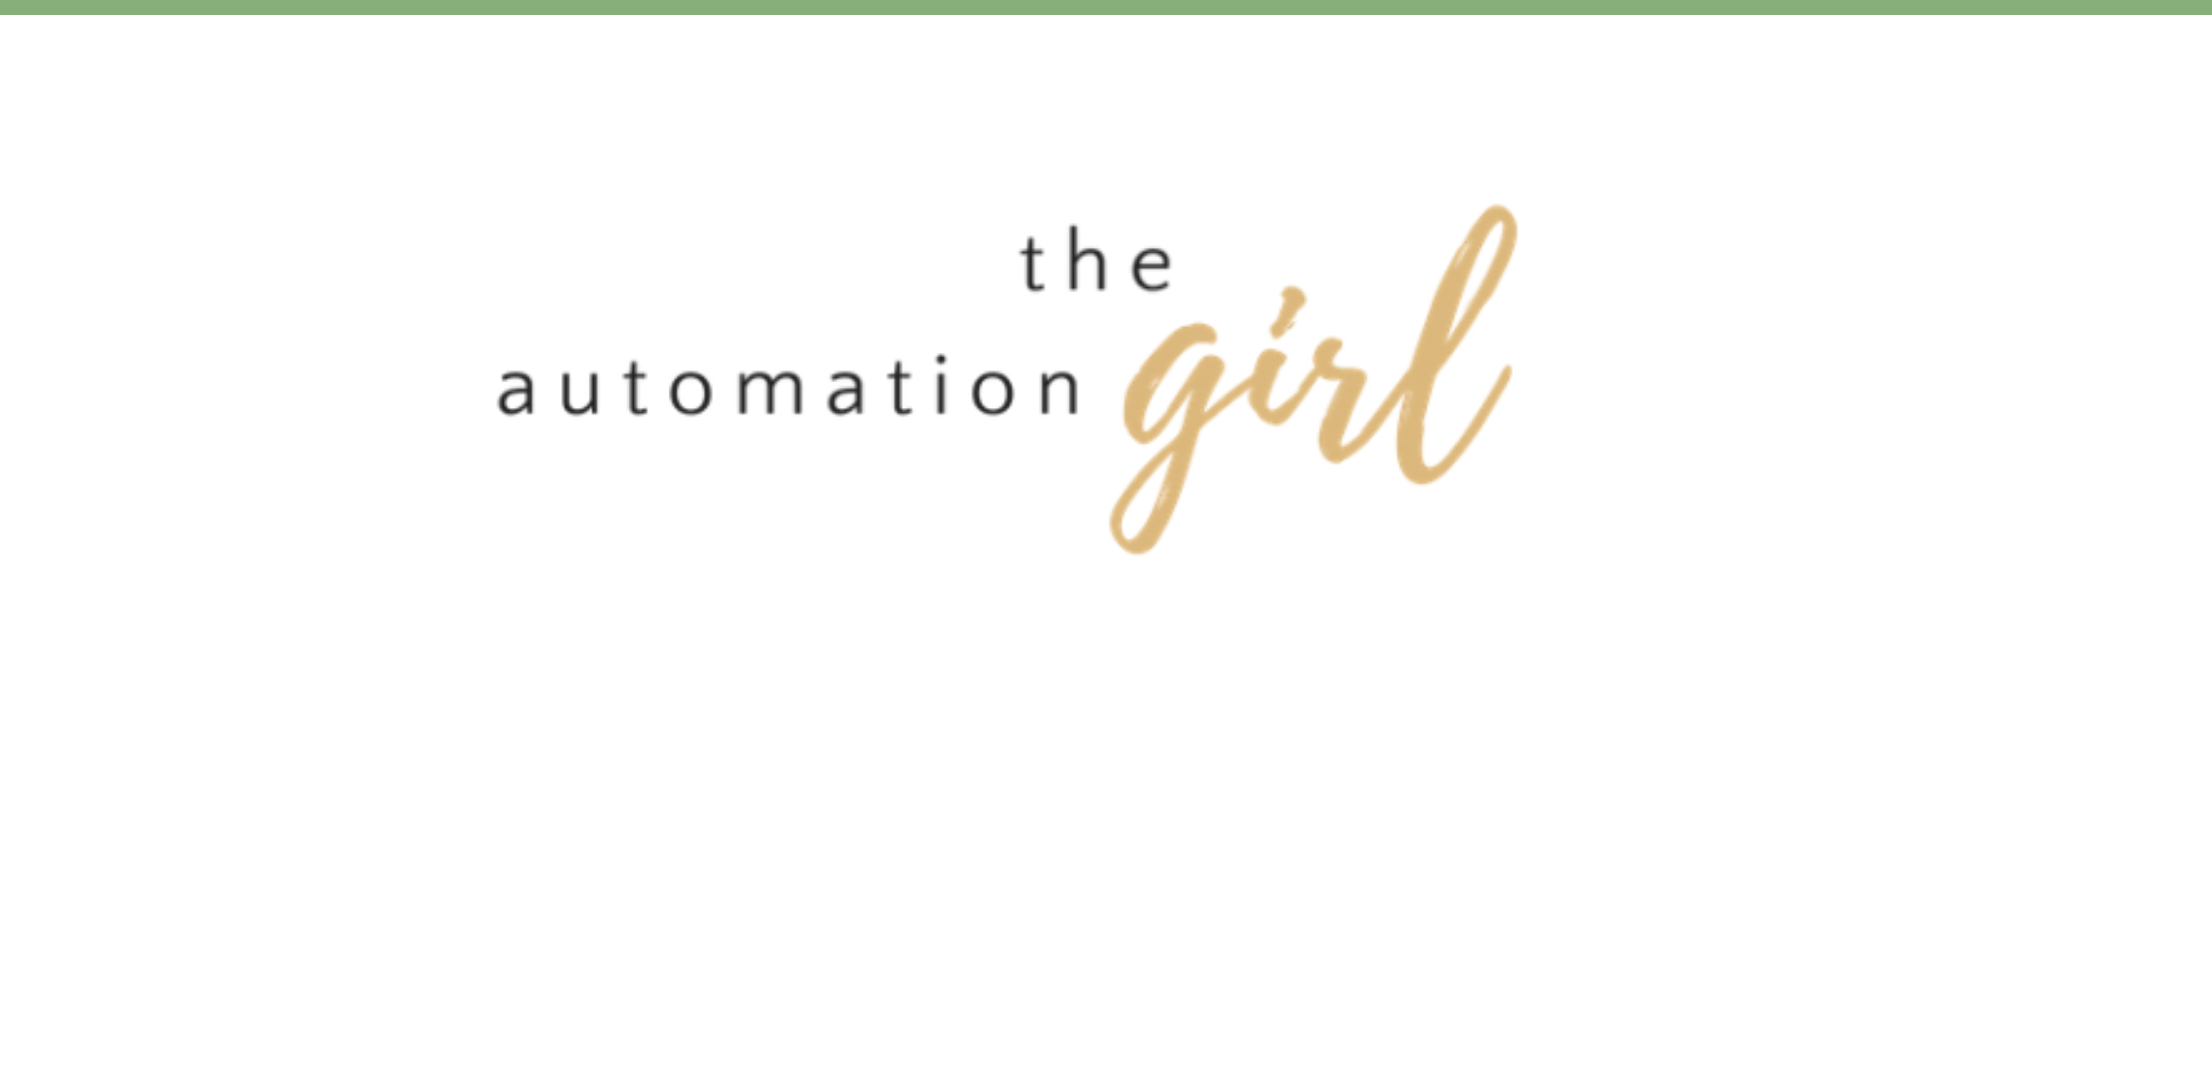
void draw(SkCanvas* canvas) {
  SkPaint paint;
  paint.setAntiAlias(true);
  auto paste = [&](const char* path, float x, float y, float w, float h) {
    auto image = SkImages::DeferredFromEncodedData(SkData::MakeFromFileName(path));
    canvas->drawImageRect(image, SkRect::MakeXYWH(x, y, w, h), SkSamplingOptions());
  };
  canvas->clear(0xffffffff);
  paint.setColor(0xff86af7a);
  canvas->drawRect(SkRect::MakeXYWH(0, 0, 2212, 15), paint);
  paste("img/1.png", 496, 203, 1024, 354);
}
